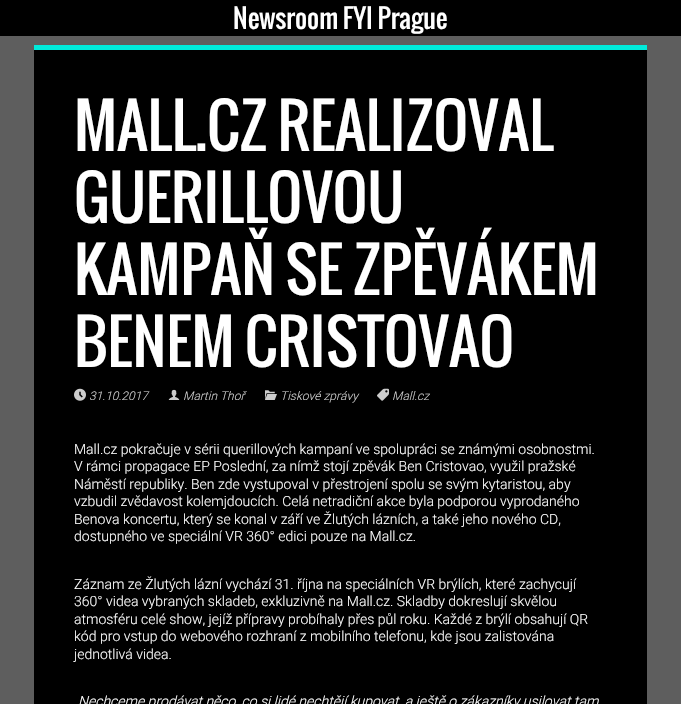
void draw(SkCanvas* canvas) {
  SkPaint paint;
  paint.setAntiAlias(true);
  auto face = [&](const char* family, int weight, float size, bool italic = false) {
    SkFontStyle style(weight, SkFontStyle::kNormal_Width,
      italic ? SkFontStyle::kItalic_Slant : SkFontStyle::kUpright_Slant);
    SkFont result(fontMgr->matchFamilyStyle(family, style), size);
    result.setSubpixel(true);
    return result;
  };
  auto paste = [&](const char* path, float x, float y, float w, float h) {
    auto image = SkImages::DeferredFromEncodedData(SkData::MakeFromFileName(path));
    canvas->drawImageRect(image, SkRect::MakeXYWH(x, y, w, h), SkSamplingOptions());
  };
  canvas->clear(0xff5e5e5e);
  {
    const struct { float x, y, w, h; SkColor color; } items[] = {
      {0, 0, 681, 36, 0xff000000},
      {34, 45, 613, 5, 0xff00eada},
      {34, 50, 613, 654, 0xff000000},
    };
    for (auto [x, y, w, h, color] : items) {
      paint.setColor(color);
      canvas->drawRect(SkRect::MakeXYWH(x, y, w, h), paint);
    }
  }
  paste("img/1.png", 74, 388, 12, 13);
  paste("img/2.png", 168, 389, 12, 11);
  paste("img/3.png", 265, 390, 12, 10);
  paste("img/4.png", 377, 388, 12, 13);
  auto f0 = face("Oswald", 400, 26);
  paint.setColor(0xffffffff);
  canvas->drawString("Newsroom FYI Prague", 233, 29, f0, paint);
  auto f1 = face("Oswald", 400, 60);
  {
    const struct { const char* s; float x, y; } items[] = {
      {"MALL.CZ REALIZOVAL", 74, 151},
      {"GUERILLOVOU", 74, 223},
      {"KAMPAŇ SE ZPĚVÁKEM", 74, 295},
      {"BENEM CRISTOVAO", 74, 367},
    };
    for (auto [s, x, y] : items) {
      canvas->drawString(s, x, y, f1, paint);
    }
  }
  auto f2 = face("Roboto", 300, 12, true);
  paint.setColor(0xffcccccc);
  {
    const struct { const char* s; float x, y; } items[] = {
      {"31.10.2017", 89, 400},
      {"Martin Thoř", 183, 400},
      {"Tiskové zprávy", 280, 400},
      {"Mall.cz", 392, 400},
    };
    for (auto [s, x, y] : items) {
      canvas->drawString(s, x, y, f2, paint);
    }
  }
  auto f3 = face("Roboto", 300, 14);
  paint.setColor(0xffffffff);
  {
    const struct { const char* s; float x, y; } items[] = {
      {"Mall.cz pokračuje v sérii querillových kampaní ve spolupráci se známými osobnostmi.", 74, 454},
      {"V rámci propagace EP Poslední, za nímž stojí zpěvák Ben Cristovao, využil pražské", 74, 471},
      {"Náměstí republiky. Ben zde vystupoval v přestrojení spolu se svým kytaristou, aby", 74, 489},
      {"vzbudil zvědavost kolemjdoucích. Celá netradiční akce byla podporou vyprodaného", 74, 506},
      {"Benova koncertu, který se konal v září ve Žlutých lázních, a také jeho nového CD,", 74, 524},
      {"dostupného ve speciální VR 360° edici pouze na Mall.cz.", 74, 541},
      {"Záznam ze Žlutých lázní vychází 31. října na speciálních VR brýlích, které zachycují", 74, 589},
      {"360° videa vybraných skladeb, exkluzivně na Mall.cz. Skladby dokreslují skvělou", 74, 606},
      {"atmosféru celé show, jejíž přípravy probíhaly přes půl roku. Každé z brýlí obsahují QR", 74, 624},
      {"kód pro vstup do webového rozhraní z mobilního telefonu, kde jsou zalistována", 74, 641},
      {"jednotlivá videa.", 74, 659},
    };
    for (auto [s, x, y] : items) {
      canvas->drawString(s, x, y, f3, paint);
    }
  }
  auto f4 = face("Roboto", 300, 14, true);
  canvas->drawString("Nechceme prodávat něco, co si lidé nechtějí kupovat, a ještě o zákazníky usilovat tam,", 78, 706, f4, paint);
}
